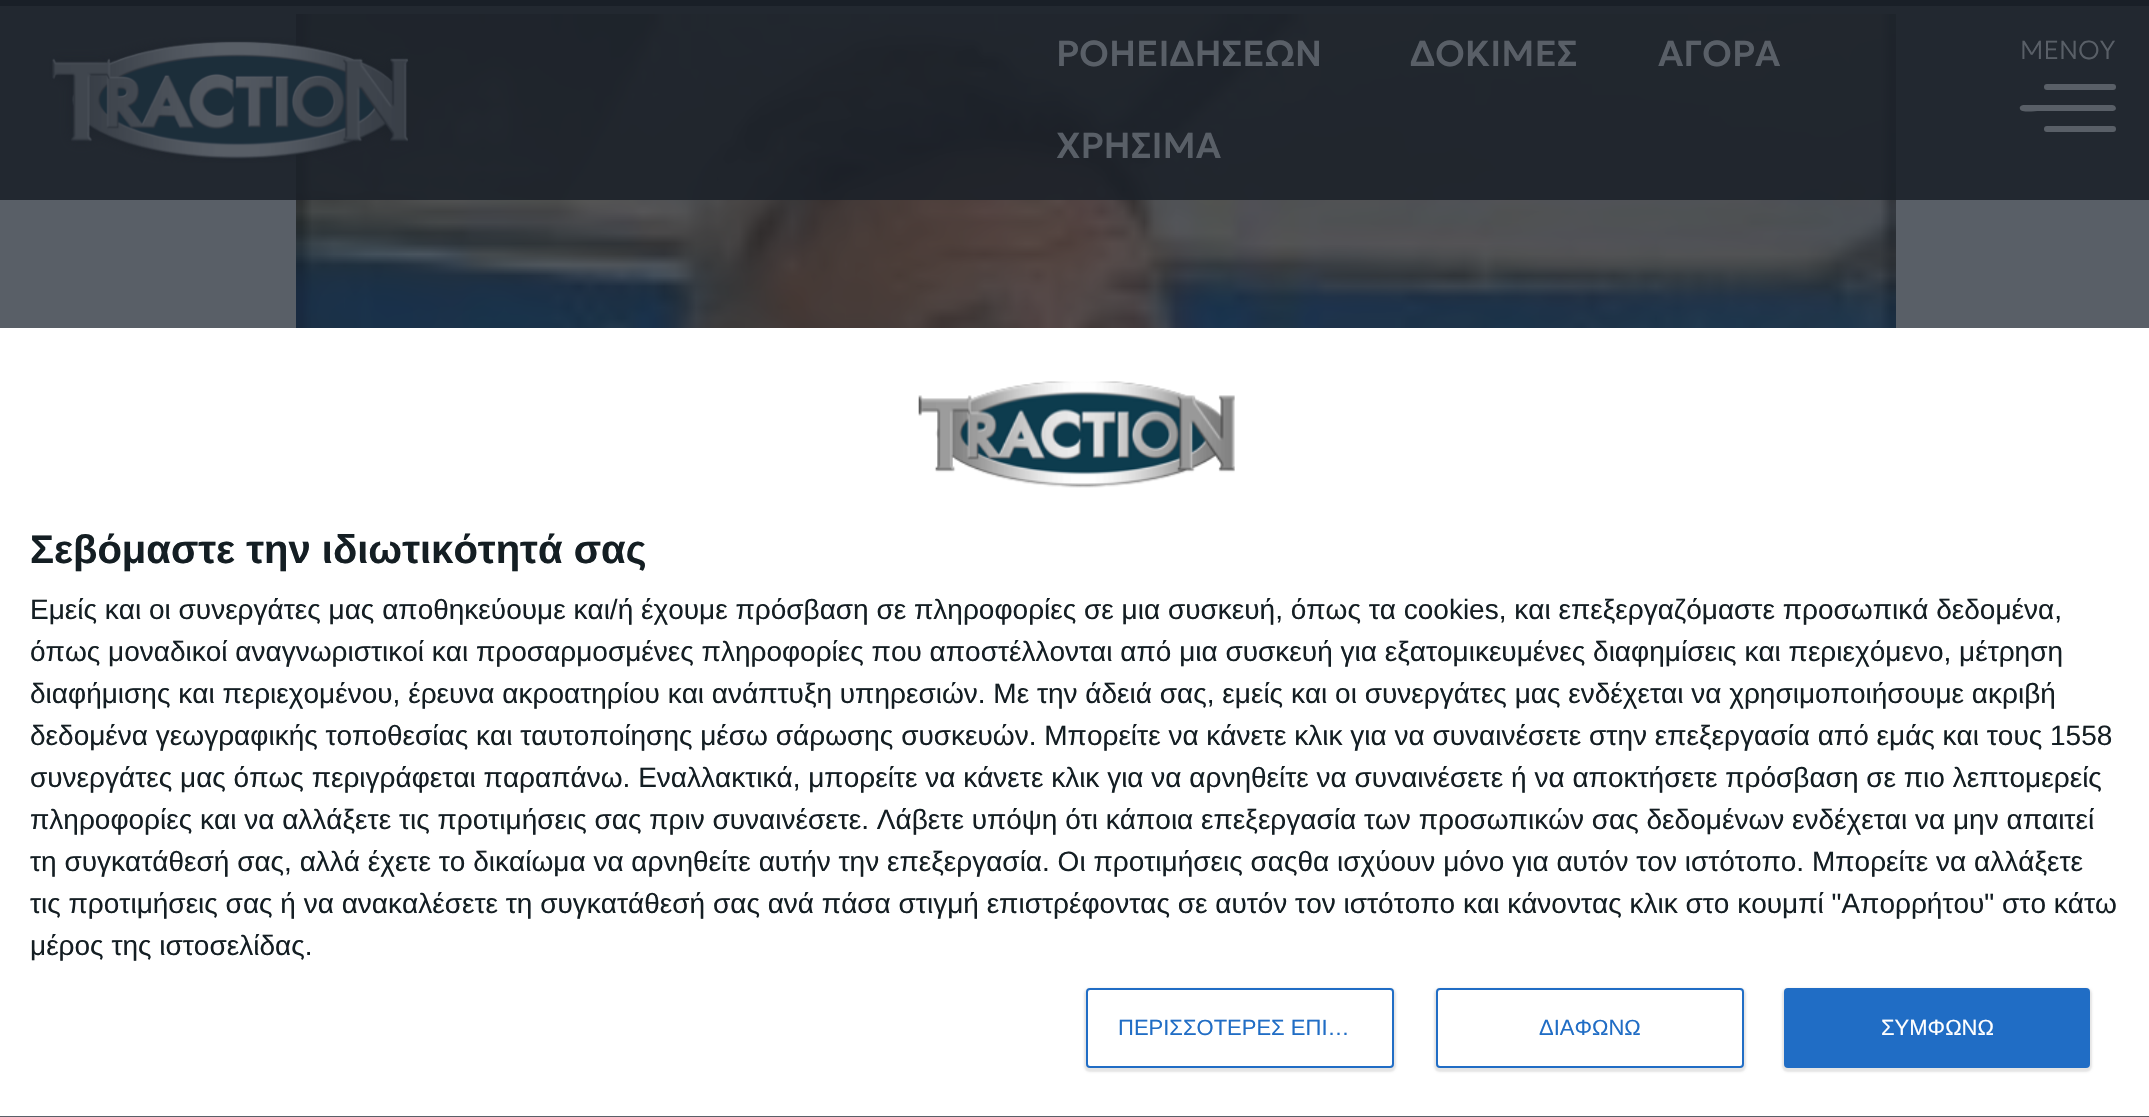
void draw(SkCanvas* canvas) {
  SkPaint paint;
  paint.setAntiAlias(true);
  auto face = [&](const char* family, int weight, float size, bool italic = false) {
    SkFontStyle style(weight, SkFontStyle::kNormal_Width,
      italic ? SkFontStyle::kItalic_Slant : SkFontStyle::kUpright_Slant);
    SkFont result(fontMgr->matchFamilyStyle(family, style), size);
    result.setSubpixel(true);
    return result;
  };
  auto paste = [&](const char* path, float x, float y, float w, float h) {
    auto image = SkImages::DeferredFromEncodedData(SkData::MakeFromFileName(path));
    canvas->drawImageRect(image, SkRect::MakeXYWH(x, y, w, h), SkSamplingOptions());
  };
  auto shape = [&](const char* data, bool evenOdd = false) {
    SkPath result = *SkParsePath::FromSVGString(data);
    if (evenOdd) result.setFillType(SkPathFillType::kEvenOdd);
    return result;
  };
  canvas->clear(0xff595f67);
  paste("img/1.png", 296, 14, 1600, 314);
  paint.setColor(0xff191f27);
  canvas->drawRect(SkRect::MakeXYWH(0, 0, 2149, 6), paint);
  paint.setColor(0xde191f27);
  canvas->drawRect(SkRect::MakeXYWH(0, 6, 2149, 194), paint);
  paste("img/2.png", 49, 37, 360, 126);
  paint.setColor(0xff595f67);
  canvas->drawRoundRect(SkRect::MakeXYWH(2044, 126, 72, 6), 3, 3, paint);
  canvas->drawPath(shape("M2024 105H2112C2116 105 2118 110 2113 111H2039C2035 111 2021 113 2020 109C2019 106 2022 105 2024 105Z", true), paint);
  canvas->drawRoundRect(SkRect::MakeXYWH(2044, 84, 72, 6), 3, 3, paint);
  paint.setColor(0xffffffff);
  canvas->drawRect(SkRect::MakeXYWH(0, 328, 2149, 788), paint);
  paste("img/3.png", 918, 381, 317, 107);
  paint.setColor(0x1a000000);
  paint.setMaskFilter(SkMaskFilter::MakeBlur(kNormal_SkBlurStyle, 1));
  canvas->drawRoundRect(SkRect::MakeXYWH(1084, 988, 312, 84), 6, 6, paint);
  paint.setMaskFilter(nullptr);
  paint.setColor(0xffffffff);
  canvas->drawRoundRect(SkRect::MakeXYWH(1087, 989, 306, 78), 3, 3, paint);
  paint.setStroke(true);
  paint.setStrokeWidth(2);
  paint.setColor(0xff206dc5);
  canvas->drawRoundRect(SkRect::MakeXYWH(1087, 989, 306, 78), 3, 3, paint);
  paint.setStroke(false);
  paint.setColor(0x1a000000);
  paint.setMaskFilter(SkMaskFilter::MakeBlur(kNormal_SkBlurStyle, 1));
  canvas->drawRoundRect(SkRect::MakeXYWH(1434, 988, 312, 84), 6, 6, paint);
  paint.setMaskFilter(nullptr);
  paint.setColor(0xffffffff);
  canvas->drawRoundRect(SkRect::MakeXYWH(1437, 989, 306, 78), 3, 3, paint);
  paint.setStroke(true);
  paint.setColor(0xff206dc5);
  canvas->drawRoundRect(SkRect::MakeXYWH(1437, 989, 306, 78), 3, 3, paint);
  paint.setStroke(false);
  paint.setColor(0x1a000000);
  paint.setMaskFilter(SkMaskFilter::MakeBlur(kNormal_SkBlurStyle, 1));
  canvas->drawRoundRect(SkRect::MakeXYWH(1782, 988, 310, 84), 6, 6, paint);
  paint.setMaskFilter(nullptr);
  paint.setColor(0xff206dc5);
  canvas->drawRoundRect(SkRect::MakeXYWH(1784, 988, 306, 80), 4, 4, paint);
  auto f0 = face("Geologica", 500, 36);
  paint.setColor(0xff595f67);
  {
    const struct { const char* s; float x, y; } items[] = {
      {"ΡΟΗ ΕΙΔΗΣΕΩΝ", 1056, 66},
      {"ΔΟΚΙΜΕΣ", 1410, 66},
      {"ΑΓΟΡΑ", 1658, 66},
      {"ΧΡΗΣΙΜΑ", 1056, 158},
    };
    for (auto [s, x, y] : items) {
      canvas->drawString(s, x, y, f0, paint);
    }
  }
  auto f1 = face("Geologica", 200, 26);
  canvas->drawString("ΜΕΝΟΥ", 2020, 59, f1, paint);
  auto f2 = face("Liberation Sans", 700, 40);
  paint.setColor(0xff141e23);
  canvas->drawString("Σεβόμαστε την ιδιωτικότητά σας", 30, 563, f2, paint);
  auto f3 = face("Liberation Sans", 400, 28);
  {
    const struct { const char* s; float x, y; } items[] = {
      {"Εμείς και οι συνεργάτες μας αποθηκεύουμε και/ή έχουμε πρόσβαση σε πληροφορίες σε μια συσκευή, όπως τα cookies, και επεξεργαζόμαστε προσωπικά δεδομένα,", 30, 619},
      {"όπως μοναδικοί αναγνωριστικοί και προσαρμοσμένες πληροφορίες που αποστέλλονται από μια συσκευή για εξατομικευμένες διαφημίσεις και περιεχόμενο, μέτρηση", 30, 661},
      {"διαφήμισης και περιεχομένου, έρευνα ακροατηρίου και ανάπτυξη υπηρεσιών. Με την άδειά σας, εμείς και οι συνεργάτες μας ενδέχεται να χρησιμοποιήσουμε ακριβή", 30, 703},
      {"δεδομένα γεωγραφικής τοποθεσίας και ταυτοποίησης μέσω σάρωσης συσκευών. Μπορείτε να κάνετε κλικ για να συναινέσετε στην επεξεργασία από εμάς και τους 1558", 30, 745},
      {"συνεργάτες μας όπως περιγράφεται παραπάνω. Εναλλακτικά, μπορείτε να κάνετε κλικ για να αρνηθείτε να συναινέσετε ή να αποκτήσετε πρόσβαση σε πιο λεπτομερείς", 30, 787},
      {"πληροφορίες και να αλλάξετε τις προτιμήσεις σας πριν συναινέσετε. Λάβετε υπόψη ότι κάποια επεξεργασία των προσωπικών σας δεδομένων ενδέχεται να μην απαιτεί", 30, 829},
      {"τη συγκατάθεσή σας, αλλά έχετε το δικαίωμα να αρνηθείτε αυτήν την επεξεργασία. Οι προτιμήσεις σαςθα ισχύουν μόνο για αυτόν τον ιστότοπο. Μπορείτε να αλλάξετε", 30, 871},
      {"τις προτιμήσεις σας ή να ανακαλέσετε τη συγκατάθεσή σας ανά πάσα στιγμή επιστρέφοντας σε αυτόν τον ιστότοπο και κάνοντας κλικ στο κουμπί \"Απορρήτου\" στο κάτω", 30, 913},
      {"μέρος της ιστοσελίδας.", 30, 955},
    };
    for (auto [s, x, y] : items) {
      canvas->drawString(s, x, y, f3, paint);
    }
  }
  auto f4 = face("Liberation Sans", 400, 22);
  paint.setColor(0xff206dc5);
  canvas->drawString("ΠΕΡΙΣΣΟΤΕΡΕΣ ΕΠΙ…", 1118, 1035, f4, paint);
  canvas->drawString("ΔΙΑΦΩΝΩ", 1539, 1035, f4, paint);
  paint.setColor(0xffffffff);
  canvas->drawString("ΣΥΜΦΩΝΩ", 1881, 1035, f4, paint);
}
